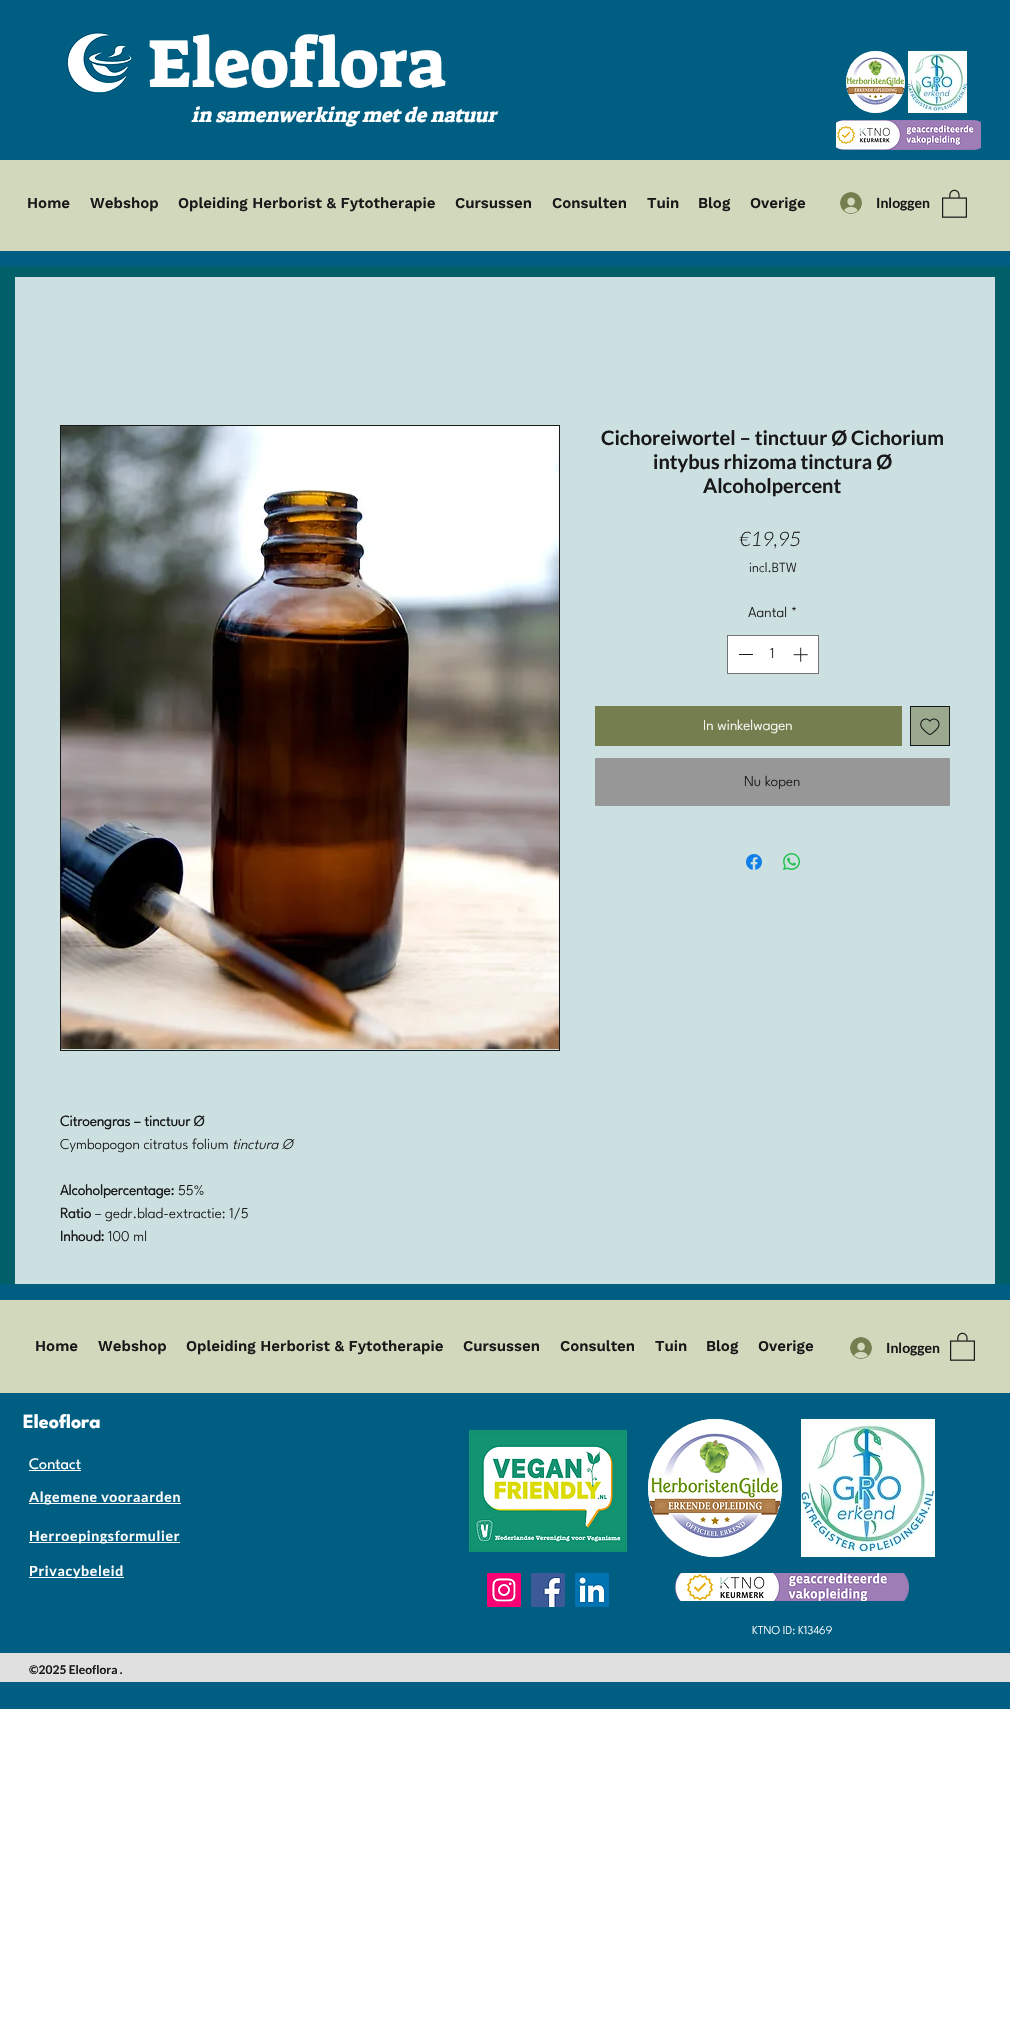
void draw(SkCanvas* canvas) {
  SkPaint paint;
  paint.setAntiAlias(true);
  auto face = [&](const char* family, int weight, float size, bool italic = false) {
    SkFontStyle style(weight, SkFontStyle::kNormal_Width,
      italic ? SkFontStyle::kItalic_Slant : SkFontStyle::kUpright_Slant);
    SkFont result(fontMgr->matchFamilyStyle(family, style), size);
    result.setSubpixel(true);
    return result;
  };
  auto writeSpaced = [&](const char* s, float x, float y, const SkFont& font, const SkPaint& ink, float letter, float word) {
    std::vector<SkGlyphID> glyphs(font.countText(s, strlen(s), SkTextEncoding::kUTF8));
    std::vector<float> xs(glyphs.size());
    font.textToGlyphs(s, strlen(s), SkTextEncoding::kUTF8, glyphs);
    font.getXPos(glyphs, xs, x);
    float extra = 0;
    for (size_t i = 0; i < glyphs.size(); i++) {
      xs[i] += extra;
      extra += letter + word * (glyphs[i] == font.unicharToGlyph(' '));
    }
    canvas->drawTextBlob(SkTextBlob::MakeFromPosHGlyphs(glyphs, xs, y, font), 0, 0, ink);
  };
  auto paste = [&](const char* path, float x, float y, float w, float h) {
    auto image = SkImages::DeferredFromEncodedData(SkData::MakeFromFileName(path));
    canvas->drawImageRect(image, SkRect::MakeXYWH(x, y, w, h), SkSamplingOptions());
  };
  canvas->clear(0xffffffff);
  paint.setColor(0xff005e82);
  canvas->drawRect(SkRect::MakeXYWH(0, 0, 1010, 266), paint);
  paste("img/1.png", 66, 32, 67, 62);
  paint.setColor(0xffffffff);
  canvas->drawOval(SkRect::MakeXYWH(846, 51, 59, 62), paint);
  paste("img/2.png", 846, 51, 59, 62);
  paste("img/3.png", 908, 51, 59, 62);
  paste("img/4.png", 836, 120, 145, 30);
  paint.setColor(0xffd2d8bc);
  canvas->drawRect(SkRect::MakeXYWH(0, 160, 1010, 91), paint);
  paste("img/5.png", 840, 192, 22, 22);
  paste("img/6.png", 942, 189, 25, 29);
  paint.setColor(0xff005f69);
  canvas->drawRect(SkRect::MakeXYWH(0, 266, 1010, 1018), paint);
  paint.setColor(0xffccdfe1);
  canvas->drawRect(SkRect::MakeXYWH(15, 277, 980, 1007), paint);
  paint.setColor(0xffffffff);
  canvas->drawRect(SkRect::MakeXYWH(727.5f, 635.5f, 91, 38), paint);
  paint.setStroke(true);
  paint.setStrokeWidth(1);
  paint.setColor(0xff747474);
  canvas->drawRect(SkRect::MakeXYWH(727.5f, 635.5f, 91, 38), paint);
  paint.setStroke(false);
  paint.setColor(0xff181818);
  canvas->drawRect(SkRect::MakeXYWH(739, 654, 14, 1), paint);
  paste("img/7.png", 793, 647, 15, 15);
  paint.setColor(0xff747e4e);
  canvas->drawRect(SkRect::MakeXYWH(595, 706, 307, 40), paint);
  paint.setColor(0xff9ba98f);
  canvas->drawRect(SkRect::MakeXYWH(910.5f, 706.5f, 39, 39), paint);
  paint.setStroke(true);
  paint.setColor(0xff181818);
  canvas->drawRect(SkRect::MakeXYWH(910.5f, 706.5f, 39, 39), paint);
  paste("img/8.png", 920, 718, 20, 18);
  paint.setStroke(false);
  paint.setColor(0xff979797);
  canvas->drawRoundRect(SkRect::MakeXYWH(595, 758, 355, 48), 1, 1, paint);
  paste("img/9.png", 746, 854, 16, 16);
  paste("img/10.png", 783, 853, 17, 17);
  paint.setStroke(true);
  paint.setColor(0xff181818);
  canvas->drawRect(SkRect::MakeXYWH(60.5f, 425.5f, 499, 625), paint);
  paste("img/11.png", 61, 426, 498, 623);
  paint.setStroke(false);
  {
    const struct { float x, y, w, h; SkColor color; } items[] = {
      {0, 1285, 1010, 424, 0xff005e82},
      {0, 1284, 1010, 1, 0xff005e7e},
      {0, 1300, 1010, 93, 0xffd2d8bc},
    };
    for (auto [x, y, w, h, color] : items) {
      paint.setColor(color);
      canvas->drawRect(SkRect::MakeXYWH(x, y, w, h), paint);
    }
  }
  paste("img/5.png", 850, 1337, 22, 22);
  paste("img/6.png", 950, 1332, 25, 29);
  paste("img/12.png", 469, 1430, 158, 122);
  paint.setColor(0xffffffff);
  canvas->drawOval(SkRect::MakeXYWH(648, 1419, 134, 138), paint);
  paste("img/13.png", 648, 1419, 134, 138);
  paste("img/14.png", 801, 1419, 134, 138);
  {
    const struct { float x, y, w, h; SkColor color; } items[] = {
      {29, 1470, 52, 1, 0xffffffff},
      {29, 1503, 152, 1, 0xffffffff},
      {29, 1542, 151, 1, 0xfffffffe},
      {29, 1577, 95, 1, 0xffffffff},
    };
    for (auto [x, y, w, h, color] : items) {
      paint.setColor(color);
      canvas->drawRect(SkRect::MakeXYWH(x, y, w, h), paint);
    }
  }
  paste("img/15.png", 487, 1573, 34, 34);
  paste("img/16.png", 531, 1573, 34, 34);
  paste("img/17.png", 575, 1573, 34, 34);
  paste("img/18.png", 675, 1573, 234, 28);
  paint.setColor(0xffe0e0e0);
  canvas->drawRect(SkRect::MakeXYWH(0, 1653, 1010, 29), paint);
  auto f0 = face("Suez One", 400, 69);
  paint.setColor(0xffffffff);
  canvas->drawString("Eleoflora", 148, 87, f0, paint);
  auto f1 = face("Suez One", 400, 20, true);
  canvas->drawString("in samenwerking met de natuur", 191, 122, f1, paint);
  auto f2 = face("Work Sans", 600, 15);
  paint.setColor(0xff181818);
  {
    const struct { const char* s; float x, y; } items[] = {
      {"Home", 27, 208},
      {"Webshop", 90, 208},
      {"Opleiding Herborist & Fytotherapie", 178, 208},
      {"Cursussen", 455, 208},
      {"Consulten", 552, 208},
      {"Tuin", 647, 208},
      {"Blog", 698, 208},
      {"Overige", 750, 208},
    };
    for (auto [s, x, y] : items) {
      canvas->drawString(s, x, y, f2, paint);
    }
  }
  auto f3 = face("Lato", 700, 14);
  canvas->drawString("Inloggen", 876, 208, f3, paint);
  auto f4 = face("Lato", 700, 20);
  {
    const struct { const char* s; float x, y; } items[] = {
      {"Cichoreiwortel – tinctuur Ø Cichorium", 601, 445},
      {"intybus rhizoma tinctura Ø", 653, 469},
      {"Alcoholpercent", 703, 493},
    };
    for (auto [s, x, y] : items) {
      canvas->drawString(s, x, y, f4, paint);
    }
  }
  auto f5 = face("Lato", 300, 20, true);
  canvas->drawString("€19,95", 739, 546, f5, paint);
  auto f6 = face("League Spartan", 100, 14);
  canvas->drawString("incl.BTW", 749, 572, f6, paint);
  auto f7 = face("League Spartan", 100, 15);
  {
    const struct { const char* s; float x, y; } items[] = {
      {"Aantal", 748, 617},
      {"*", 791, 617},
      {"1", 770, 658},
    };
    for (auto [s, x, y] : items) {
      canvas->drawString(s, x, y, f7, paint);
    }
  }
  paint.setColor(0xffffffff);
  canvas->drawString("In winkelwagen", 703, 730, f7, paint);
  paint.setColor(0xff181818);
  canvas->drawString("Nu kopen", 744, 786, f7, paint);
  auto f8 = face("League Spartan", 700, 15);
  canvas->drawString("Citroengras – tinctuur Ø", 60, 1126, f8, paint);
  canvas->drawString("Cymbopogon citratus folium", 60, 1149, f7, paint);
  auto f9 = face("League Spartan", 100, 15, true);
  canvas->drawString("tinctura Ø", 232, 1149, f9, paint);
  canvas->drawString("Alcoholpercentage:", 60, 1195, f8, paint);
  canvas->drawString("55%", 178, 1195, f7, paint);
  canvas->drawString("Ratio", 60, 1218, f8, paint);
  canvas->drawString("– gedr.blad-extractie: 1/5", 95, 1218, f7, paint);
  canvas->drawString("Inhoud:", 60, 1241, f8, paint);
  canvas->drawString("100 ml", 108, 1241, f7, paint);
  {
    const struct { const char* s; float x, y; } items[] = {
      {"Home", 35, 1351},
      {"Webshop", 98, 1351},
      {"Opleiding Herborist & Fytotherapie", 186, 1351},
      {"Cursussen", 463, 1351},
      {"Consulten", 560, 1351},
      {"Tuin", 655, 1351},
      {"Blog", 706, 1351},
      {"Overige", 758, 1351},
    };
    for (auto [s, x, y] : items) {
      canvas->drawString(s, x, y, f2, paint);
    }
  }
  canvas->drawString("Inloggen", 886, 1353, f3, paint);
  auto f10 = face("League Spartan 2", 700, 20);
  paint.setColor(0xffffffff);
  canvas->drawString("Eleoflora", 23, 1428, f10, paint);
  auto f11 = face("League Spartan", 400, 16);
  canvas->drawString("Contact", 29, 1469, f11, paint);
  {
    const struct { const char* s; float x, y; } items[] = {
      {"Algemene vooraarden", 29, 1502},
      {"Herroepingsformulier", 29, 1541},
      {"Privacybeleid", 29, 1576},
    };
    for (auto [s, x, y] : items) {
      writeSpaced(s, x, y, f3, paint, 0.7f, 0);
    }
  }
  auto f12 = face("League Spartan", 100, 12);
  canvas->drawString("KTNO ID: K13469", 752, 1634, f12, paint);
  auto f13 = face("Lato", 700, 12);
  paint.setColor(0xff181818);
  canvas->drawString("©2025 Eleoflora .", 29, 1674, f13, paint);
}
